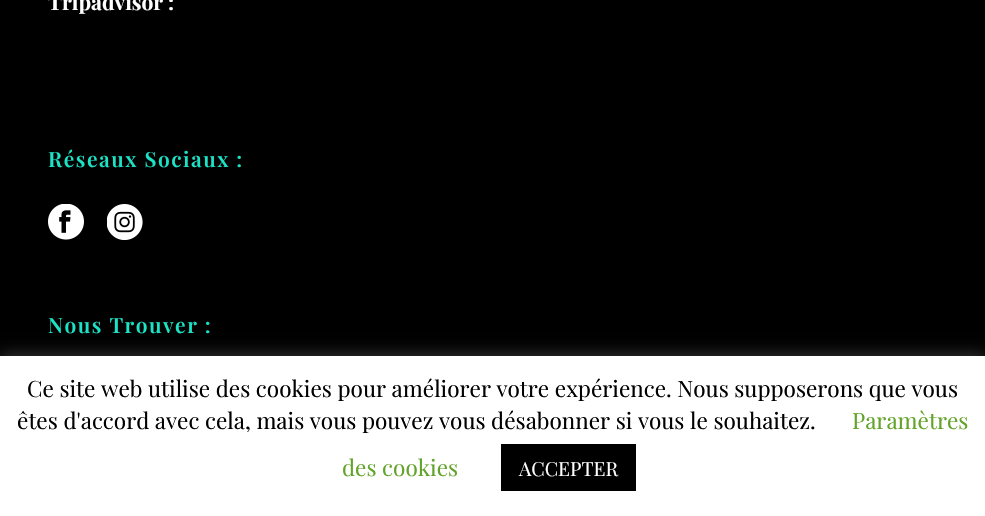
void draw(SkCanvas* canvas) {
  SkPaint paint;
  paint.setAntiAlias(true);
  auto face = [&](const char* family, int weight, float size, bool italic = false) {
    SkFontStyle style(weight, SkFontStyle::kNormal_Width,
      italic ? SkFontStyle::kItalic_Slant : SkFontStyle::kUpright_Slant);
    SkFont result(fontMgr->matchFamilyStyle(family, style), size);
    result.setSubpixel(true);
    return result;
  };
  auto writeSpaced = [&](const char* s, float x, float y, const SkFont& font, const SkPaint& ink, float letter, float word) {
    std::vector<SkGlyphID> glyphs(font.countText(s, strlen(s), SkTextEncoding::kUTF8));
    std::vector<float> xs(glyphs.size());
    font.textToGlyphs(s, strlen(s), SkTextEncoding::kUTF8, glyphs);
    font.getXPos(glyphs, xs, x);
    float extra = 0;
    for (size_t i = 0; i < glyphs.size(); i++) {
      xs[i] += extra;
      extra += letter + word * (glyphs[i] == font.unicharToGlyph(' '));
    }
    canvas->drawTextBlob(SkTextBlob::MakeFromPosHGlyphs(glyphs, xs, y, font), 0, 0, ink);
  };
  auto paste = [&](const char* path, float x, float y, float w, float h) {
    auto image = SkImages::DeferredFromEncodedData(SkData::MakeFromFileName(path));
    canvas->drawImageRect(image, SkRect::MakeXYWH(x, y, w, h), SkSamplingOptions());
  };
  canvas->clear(0xff000000);
  paste("img/1.png", 48, 204, 36, 36);
  paste("img/2.png", 107, 204, 36, 36);
  paint.setColor(0x4dacabab);
  paint.setMaskFilter(SkMaskFilter::MakeBlur(kNormal_SkBlurStyle, 7.5f));
  canvas->drawRect(SkRect::MakeXYWH(0, 354, 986, 161), paint);
  paint.setMaskFilter(nullptr);
  paint.setColor(0xffffffff);
  canvas->drawRect(SkRect::MakeXYWH(0, 356, 985, 160), paint);
  paint.setColor(0xff000000);
  canvas->drawRect(SkRect::MakeXYWH(501, 444, 135, 47), paint);
  auto f0 = face("Playfair Display", 700, 21);
  paint.setColor(0xffffffff);
  canvas->drawString("Tripadvisor :", 48, 10, f0, paint);
  auto f1 = face("Playfair Display", 600, 21);
  paint.setColor(0xff1ce3c6);
  writeSpaced("Réseaux Sociaux :", 48, 167, f1, paint, 1.5f, 0);
  writeSpaced("Nous Trouver :", 48, 333, f1, paint, 1.5f, 0);
  auto f2 = face("Playfair Display", 400, 22.5f);
  paint.setColor(0xff000000);
  canvas->drawString("Ce site web utilise des cookies pour améliorer votre expérience. Nous supposerons que vous", 27, 397, f2, paint);
  canvas->drawString("êtes d'accord avec cela, mais vous pouvez vous désabonner si vous le souhaitez.", 17, 429, f2, paint);
  paint.setColor(0xff62a329);
  canvas->drawString("Paramètres", 852, 429, f2, paint);
  canvas->drawString("des cookies", 342, 476, f2, paint);
  auto f3 = face("Playfair Display", 400, 19.5f);
  paint.setColor(0xffffffff);
  canvas->drawString("ACCEPTER", 519, 476, f3, paint);
}
